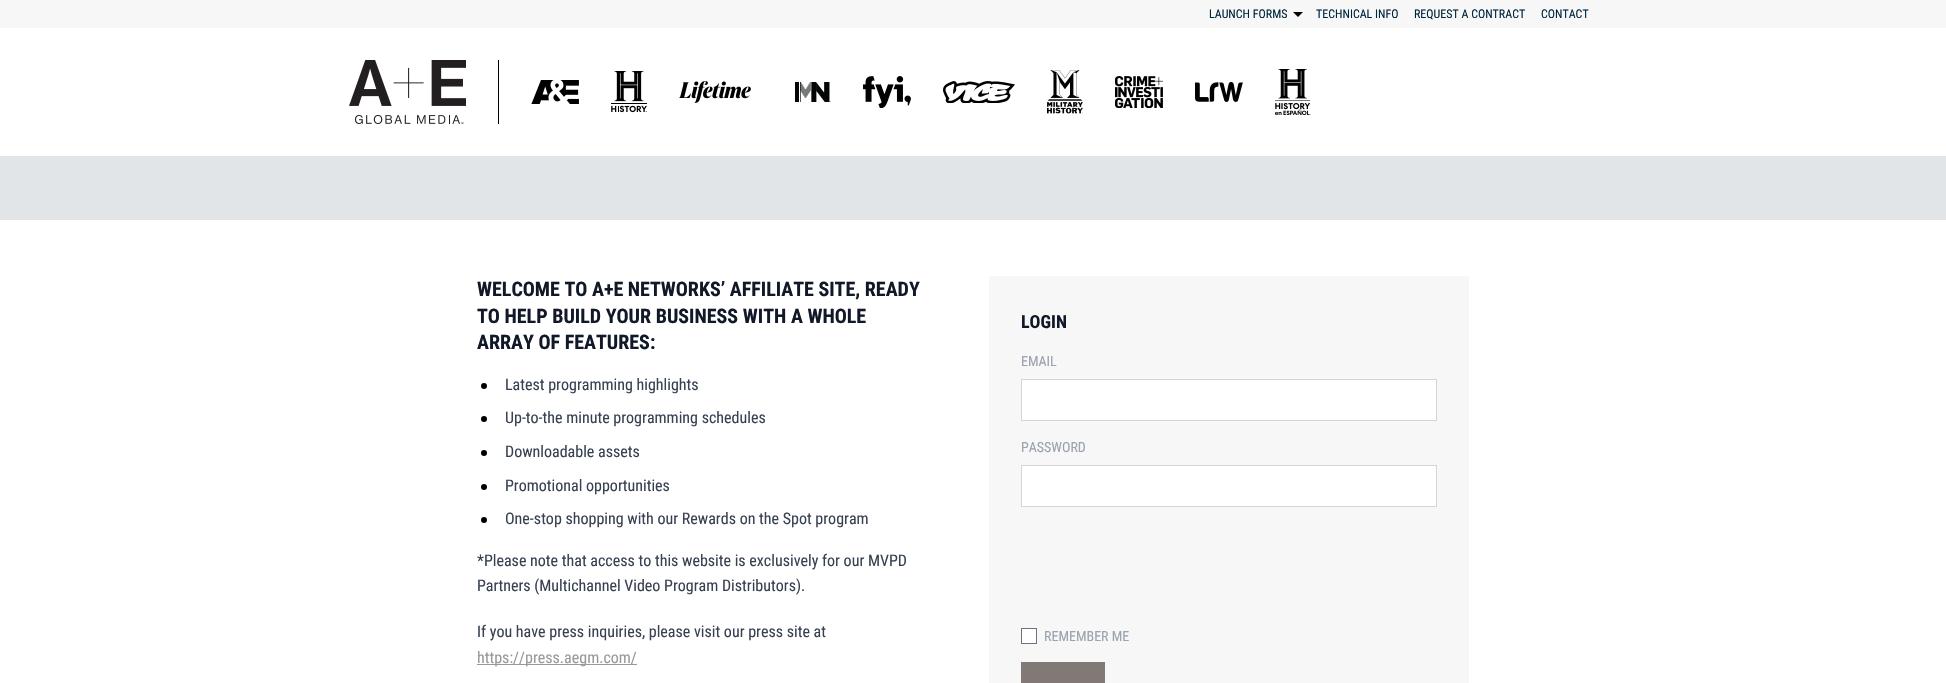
void draw(SkCanvas* canvas) {
  SkPaint paint;
  paint.setAntiAlias(true);
  auto face = [&](const char* family, int weight, float size, bool italic = false) {
    SkFontStyle style(weight, SkFontStyle::kNormal_Width,
      italic ? SkFontStyle::kItalic_Slant : SkFontStyle::kUpright_Slant);
    SkFont result(fontMgr->matchFamilyStyle(family, style), size);
    result.setSubpixel(true);
    return result;
  };
  auto paste = [&](const char* path, float x, float y, float w, float h) {
    auto image = SkImages::DeferredFromEncodedData(SkData::MakeFromFileName(path));
    canvas->drawImageRect(image, SkRect::MakeXYWH(x, y, w, h), SkSamplingOptions());
  };
  auto shape = [&](const char* data, bool evenOdd = false) {
    SkPath result = *SkParsePath::FromSVGString(data);
    if (evenOdd) result.setFillType(SkPathFillType::kEvenOdd);
    return result;
  };
  canvas->clear(0xffffffff);
  paint.setColor(0xfff7f7f7);
  canvas->drawRect(SkRect::MakeXYWH(0, 0, 1946, 28), paint);
  paint.setColor(0xff000000);
  canvas->drawPath(shape("M1293 12H1303L1298 17Z"), paint);
  paste("img/1.png", 349, 60, 117, 64);
  canvas->drawRect(SkRect::MakeXYWH(498, 60, 1, 64), paint);
  paste("img/2.png", 531, 80, 48, 24);
  paste("img/3.png", 611, 71, 36, 42);
  paste("img/4.png", 679, 81, 72, 22);
  paste("img/5.png", 795, 82, 36, 20);
  paste("img/6.png", 863, 76, 48, 32);
  paste("img/7.png", 943, 81, 72, 22);
  paste("img/8.png", 1047, 70, 36, 44);
  paste("img/9.png", 1115, 76, 48, 32);
  paste("img/10.png", 1195, 82, 48, 20);
  paste("img/11.png", 1275, 69, 36, 46);
  paint.setColor(0xffe1e5e8);
  canvas->drawRect(SkRect::MakeXYWH(0, 156, 1946, 64), paint);
  paint.setColor(0xff000000);
  canvas->drawCircle(484, 386, 3, paint);
  canvas->drawCircle(484, 419, 3, paint);
  canvas->drawCircle(484, 453, 3, paint);
  canvas->drawCircle(484, 487, 3, paint);
  canvas->drawCircle(484, 520, 3, paint);
  paint.setColor(0xff999999);
  canvas->drawRect(SkRect::MakeXYWH(477, 664, 160, 1), paint);
  paint.setColor(0xfff7f7f7);
  canvas->drawRect(SkRect::MakeXYWH(989, 276, 480, 407), paint);
  paint.setColor(0xffffffff);
  canvas->drawRect(SkRect::MakeXYWH(1021.5f, 379.5f, 415, 41), paint);
  paint.setStroke(true);
  paint.setStrokeWidth(1);
  paint.setColor(0xffd1d5db);
  canvas->drawRect(SkRect::MakeXYWH(1021.5f, 379.5f, 415, 41), paint);
  paint.setStroke(false);
  paint.setColor(0xffffffff);
  canvas->drawRect(SkRect::MakeXYWH(1021.5f, 465.5f, 415, 41), paint);
  paint.setStroke(true);
  paint.setColor(0xffd1d5db);
  canvas->drawRect(SkRect::MakeXYWH(1021.5f, 465.5f, 415, 41), paint);
  paint.setStroke(false);
  paint.setColor(0xffffffff);
  canvas->drawRect(SkRect::MakeXYWH(1021.5f, 628.5f, 15, 15), paint);
  paint.setStroke(true);
  paint.setColor(0xff6b7280);
  canvas->drawRect(SkRect::MakeXYWH(1021.5f, 628.5f, 15, 15), paint);
  paint.setStroke(false);
  paint.setColor(0xff817975);
  canvas->drawRect(SkRect::MakeXYWH(1021, 662, 84, 21), paint);
  auto f0 = face("Roboto Condensed", 400, 12);
  paint.setColor(0xff00263e);
  {
    const struct { const char* s; float x, y; } items[] = {
      {"LAUNCH FORMS", 1209, 18},
      {"TECHNICAL INFO", 1316, 18},
      {"REQUEST A CONTRACT", 1414, 18},
      {"CONTACT", 1541, 18},
    };
    for (auto [s, x, y] : items) {
      canvas->drawString(s, x, y, f0, paint);
    }
  }
  auto f1 = face("Roboto Condensed", 700, 20);
  paint.setColor(0xff111827);
  {
    const struct { const char* s; float x, y; } items[] = {
      {"WELCOME TO A+E NETWORKS’ AFFILIATE SITE, READY", 477, 296},
      {"TO HELP BUILD YOUR BUSINESS WITH A WHOLE", 477, 323},
      {"ARRAY OF FEATURES:", 477, 349},
    };
    for (auto [s, x, y] : items) {
      canvas->drawString(s, x, y, f1, paint);
    }
  }
  auto f2 = face("Roboto Condensed", 400, 16);
  paint.setColor(0xff374151);
  {
    const struct { const char* s; float x, y; } items[] = {
      {"Latest programming highlights", 505, 390},
      {"Up-to-the minute programming schedules", 505, 423},
      {"Downloadable assets", 505, 457},
      {"Promotional opportunities", 505, 491},
      {"One-stop shopping with our Rewards on the Spot program", 505, 524},
      {"*Please note that access to this website is exclusively for our MVPD", 477, 566},
      {"Partners (Multichannel Video Program Distributors).", 477, 591},
      {"If you have press inquiries, please visit our press site at", 477, 637},
    };
    for (auto [s, x, y] : items) {
      canvas->drawString(s, x, y, f2, paint);
    }
  }
  paint.setColor(0xff999999);
  canvas->drawString("https://press.aegm.com/", 477, 663, f2, paint);
  auto f3 = face("Roboto Condensed", 700, 18);
  paint.setColor(0xff111827);
  canvas->drawString("LOGIN", 1021, 328, f3, paint);
  auto f4 = face("Roboto Condensed", 400, 14);
  paint.setColor(0xff9ca3af);
  {
    const struct { const char* s; float x, y; } items[] = {
      {"EMAIL", 1021, 366},
      {"PASSWORD", 1021, 452},
      {"REMEMBER ME", 1044, 641},
    };
    for (auto [s, x, y] : items) {
      canvas->drawString(s, x, y, f4, paint);
    }
  }
}
